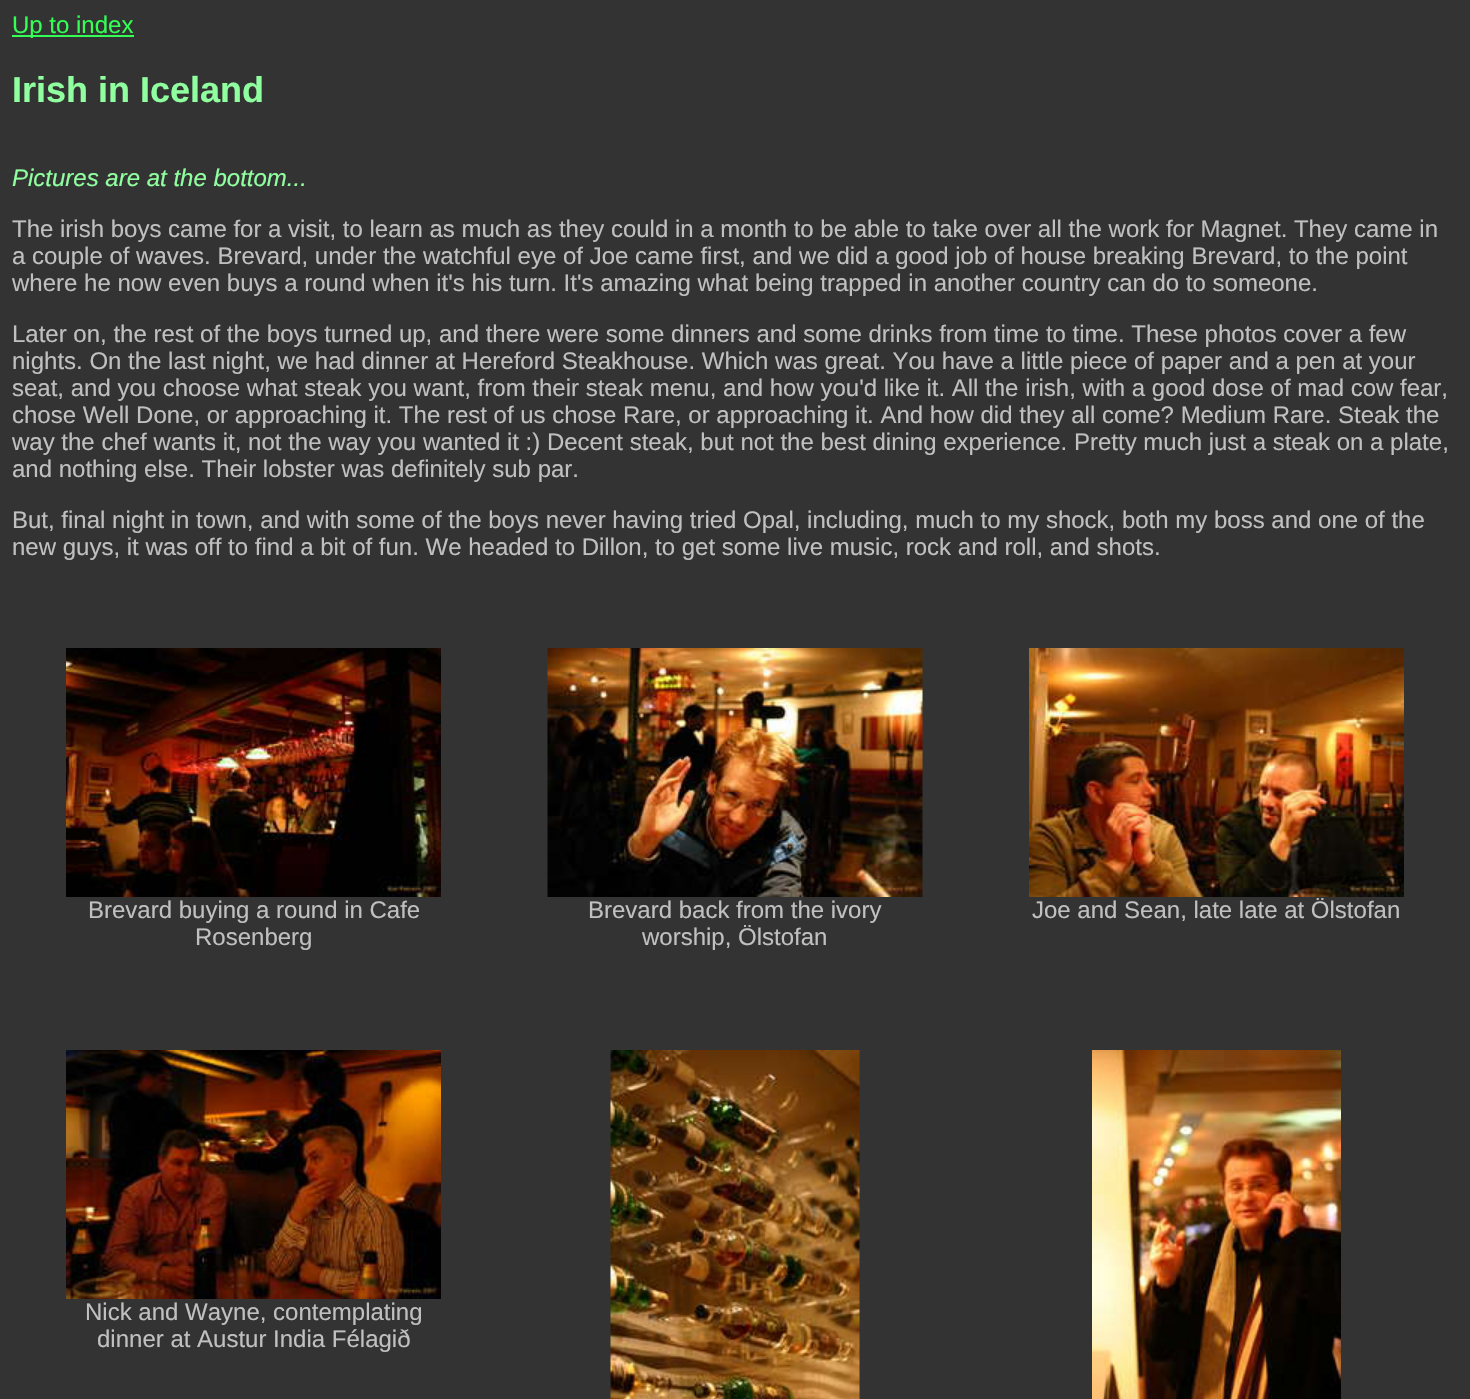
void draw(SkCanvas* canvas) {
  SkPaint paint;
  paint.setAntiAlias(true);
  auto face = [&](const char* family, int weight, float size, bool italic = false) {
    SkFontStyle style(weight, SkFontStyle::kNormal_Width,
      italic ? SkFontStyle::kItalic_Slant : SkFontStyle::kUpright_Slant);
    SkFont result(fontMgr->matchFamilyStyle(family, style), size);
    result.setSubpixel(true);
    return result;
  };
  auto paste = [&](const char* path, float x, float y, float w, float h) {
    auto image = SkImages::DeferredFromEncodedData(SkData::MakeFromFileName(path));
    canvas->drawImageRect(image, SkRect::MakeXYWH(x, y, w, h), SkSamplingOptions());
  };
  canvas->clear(0xff333333);
  paint.setColor(0xff33ff55);
  canvas->drawRect(SkRect::MakeXYWH(12, 35, 122, 2), paint);
  paste("img/1.png", 66, 648, 375, 249);
  paste("img/2.png", 547, 648, 376, 249);
  paste("img/3.png", 1029, 648, 375, 249);
  paste("img/4.png", 66, 1050, 375, 249);
  paste("img/5.png", 610, 1050, 250, 349);
  paste("img/6.png", 1092, 1050, 249, 349);
  auto f0 = face("Liberation Sans", 400, 24);
  canvas->drawString("Up to index", 12, 33, f0, paint);
  auto f1 = face("Liberation Sans", 700, 36);
  paint.setColor(0xff90ffa0);
  canvas->drawString("Irish in Iceland", 12, 102, f1, paint);
  auto f2 = face("Liberation Sans", 400, 24, true);
  canvas->drawString("Pictures are at the bottom...", 12, 186, f2, paint);
  paint.setColor(0xffc0c0c0);
  {
    const struct { const char* s; float x, y; } items[] = {
      {"The irish boys came for a visit, to learn as much as they could in a month to be able to take over all the work for Magnet. They came in", 12, 237},
      {"a couple of waves. Brevard, under the watchful eye of Joe came first, and we did a good job of house breaking Brevard, to the point", 12, 264},
      {"where he now even buys a round when it's his turn. It's amazing what being trapped in another country can do to someone.", 12, 291},
      {"Later on, the rest of the boys turned up, and there were some dinners and some drinks from time to time. These photos cover a few", 12, 342},
      {"nights. On the last night, we had dinner at Hereford Steakhouse. Which was great. You have a little piece of paper and a pen at your", 12, 369},
      {"seat, and you choose what steak you want, from their steak menu, and how you'd like it. All the irish, with a good dose of mad cow fear,", 12, 396},
      {"chose Well Done, or approaching it. The rest of us chose Rare, or approaching it. And how did they all come? Medium Rare. Steak the", 12, 423},
      {"way the chef wants it, not the way you wanted it :) Decent steak, but not the best dining experience. Pretty much just a steak on a plate,", 12, 450},
      {"and nothing else. Their lobster was definitely sub par.", 12, 477},
      {"But, final night in town, and with some of the boys never having tried Opal, including, much to my shock, both my boss and one of the", 12, 528},
      {"new guys, it was off to find a bit of fun. We headed to Dillon, to get some live music, rock and roll, and shots.", 12, 555},
      {"Brevard buying a round in Cafe", 88, 918},
      {"Rosenberg", 195, 945},
      {"Brevard back from the ivory", 588, 918},
      {"worship, Ölstofan", 642, 945},
      {"Joe and Sean, late late at Ölstofan", 1032, 918},
      {"Nick and Wayne, contemplating", 85, 1320},
      {"dinner at Austur India Félagið", 97, 1347},
    };
    for (auto [s, x, y] : items) {
      canvas->drawString(s, x, y, f0, paint);
    }
  }
}
